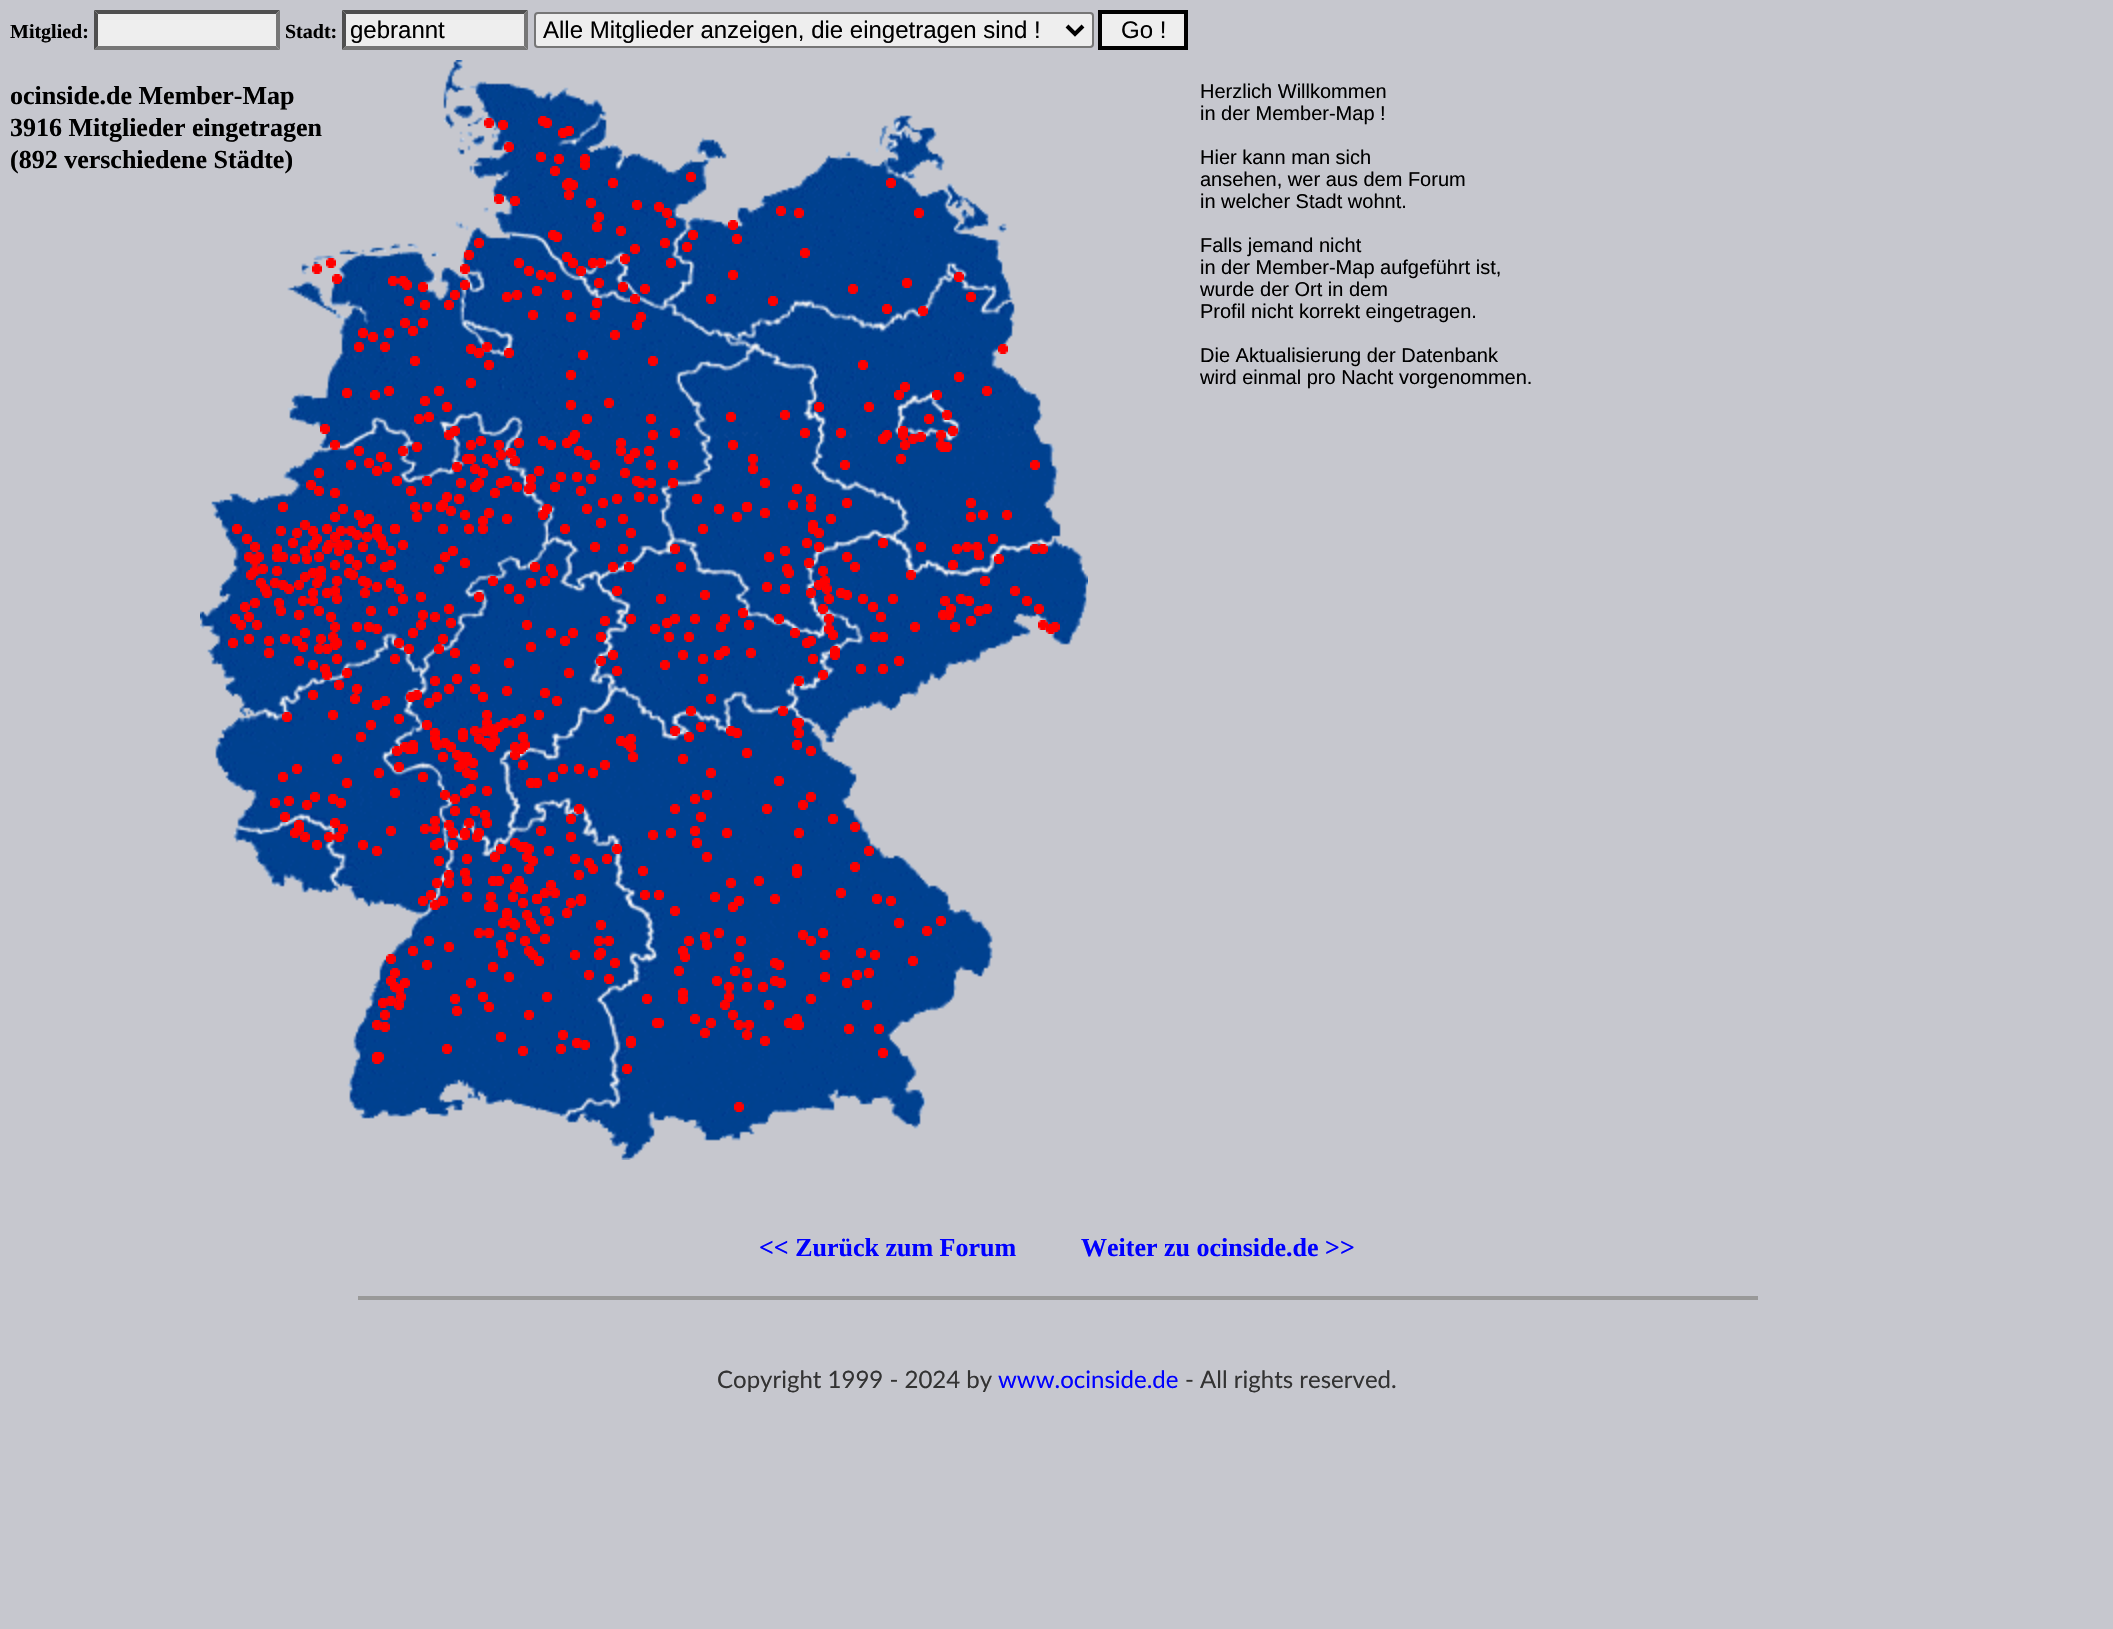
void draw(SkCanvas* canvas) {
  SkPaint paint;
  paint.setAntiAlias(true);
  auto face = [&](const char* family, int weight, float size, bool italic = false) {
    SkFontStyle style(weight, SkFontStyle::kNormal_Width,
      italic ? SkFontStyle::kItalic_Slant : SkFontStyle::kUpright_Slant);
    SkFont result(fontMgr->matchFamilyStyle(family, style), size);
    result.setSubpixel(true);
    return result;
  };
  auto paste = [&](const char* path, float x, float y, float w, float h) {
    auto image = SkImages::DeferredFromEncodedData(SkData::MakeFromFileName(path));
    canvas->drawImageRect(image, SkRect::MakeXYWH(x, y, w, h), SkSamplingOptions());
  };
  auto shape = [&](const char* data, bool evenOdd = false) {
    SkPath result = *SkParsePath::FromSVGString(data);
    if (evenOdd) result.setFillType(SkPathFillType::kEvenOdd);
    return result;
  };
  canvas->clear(0xffc6c7ce);
  paint.setColor(0xffeeeeee);
  canvas->drawRect(SkRect::MakeXYWH(94, 10, 186, 40), paint);
  paint.setColor(0xff4f4f4f);
  canvas->drawPath(shape("M94 10H280L276 14H98Z"), paint);
  paint.setColor(0xff767676);
  canvas->drawPath(shape("M280 10V50L276 46V14Z"), paint);
  canvas->drawPath(shape("M280 50H94L98 46H276Z"), paint);
  paint.setColor(0xff4f4f4f);
  canvas->drawPath(shape("M94 50V10L98 14V46Z"), paint);
  paint.setColor(0xffeeeeee);
  canvas->drawRect(SkRect::MakeXYWH(342, 10, 186, 40), paint);
  paint.setColor(0xff4f4f4f);
  canvas->drawPath(shape("M342 10H528L524 14H346Z"), paint);
  paint.setColor(0xff767676);
  canvas->drawPath(shape("M528 10V50L524 46V14Z"), paint);
  canvas->drawPath(shape("M528 50H342L346 46H524Z"), paint);
  paint.setColor(0xff4f4f4f);
  canvas->drawPath(shape("M342 50V10L346 14V46Z"), paint);
  paint.setColor(0xffeeeeee);
  canvas->drawRoundRect(SkRect::MakeXYWH(535, 13, 558, 34), 3, 3, paint);
  paint.setStroke(true);
  paint.setStrokeWidth(2);
  paint.setColor(0xff767676);
  canvas->drawRoundRect(SkRect::MakeXYWH(535, 13, 558, 34), 3, 3, paint);
  paint.setStrokeWidth(4);
  paint.setColor(0xff000000);
  canvas->drawPath(shape("M1067 26L1075 34L1083 26"), paint);
  paint.setStroke(false);
  paint.setColor(0xffeeeeee);
  canvas->drawRect(SkRect::MakeXYWH(1100, 12, 86, 36), paint);
  paint.setStroke(true);
  paint.setColor(0xff000000);
  canvas->drawRect(SkRect::MakeXYWH(1100, 12, 86, 36), paint);
  paste("img/1.png", 200, 60, 888, 1100);
  paste("img/2.png", 484, 118, 10, 10);
  paste("img/5.png", 542, 118, 10, 10);
  paste("img/3.png", 538, 116, 10, 10);
  paste("img/4.png", 498, 120, 10, 10);
  paste("img/6.png", 558, 128, 10, 10);
  paste("img/7.png", 564, 126, 10, 10);
  paste("img/8.png", 504, 142, 10, 10);
  paste("img/9.png", 536, 152, 10, 10);
  paste("img/10.png", 554, 154, 10, 10);
  paste("img/11.png", 580, 154, 10, 9);
  paste("img/12.png", 550, 166, 10, 10);
  paste("img/13.png", 580, 161, 10, 9);
  paste("img/14.png", 686, 172, 10, 10);
  paste("img/15.png", 564, 178, 10, 10);
  paste("img/16.png", 608, 178, 10, 10);
  paste("img/17.png", 886, 178, 10, 10);
  paste("img/19.png", 569, 180, 9, 10);
  paste("img/18.png", 562, 180, 9, 10);
  paste("img/20.png", 494, 194, 10, 10);
  paste("img/21.png", 510, 196, 10, 10);
  paste("img/22.png", 564, 190, 10, 10);
  paste("img/23.png", 586, 198, 10, 10);
  paste("img/24.png", 594, 212, 10, 10);
  paste("img/25.png", 632, 200, 10, 10);
  paste("img/26.png", 654, 202, 10, 10);
  paste("img/27.png", 662, 208, 10, 10);
  paste("img/28.png", 776, 206, 10, 10);
  paste("img/29.png", 794, 208, 10, 10);
  paste("img/30.png", 914, 208, 10, 10);
  paste("img/31.png", 548, 230, 10, 10);
  paste("img/32.png", 592, 222, 10, 10);
  paste("img/33.png", 616, 226, 10, 10);
  paste("img/34.png", 666, 218, 10, 10);
  paste("img/35.png", 688, 230, 10, 10);
  paste("img/36.png", 728, 220, 10, 10);
  paste("img/37.png", 326, 258, 10, 10);
  paste("img/38.png", 464, 250, 10, 10);
  paste("img/39.png", 474, 238, 10, 10);
  paste("img/40.png", 514, 258, 10, 10);
  paste("img/41.png", 552, 232, 10, 10);
  paste("img/42.png", 562, 252, 10, 10);
  paste("img/61.png", 576, 266, 10, 10);
  paste("img/43.png", 568, 258, 10, 10);
  paste("img/44.png", 588, 258, 10, 10);
  paste("img/45.png", 596, 258, 10, 10);
  paste("img/46.png", 620, 254, 10, 10);
  paste("img/47.png", 630, 244, 10, 10);
  paste("img/48.png", 660, 238, 10, 10);
  paste("img/49.png", 666, 258, 10, 10);
  paste("img/50.png", 682, 242, 10, 10);
  paste("img/51.png", 732, 234, 10, 10);
  paste("img/52.png", 800, 248, 10, 10);
  paste("img/53.png", 312, 264, 10, 10);
  paste("img/54.png", 332, 274, 10, 10);
  paste("img/55.png", 388, 276, 10, 10);
  paste("img/56.png", 398, 276, 10, 10);
  paste("img/57.png", 460, 264, 10, 10);
  paste("img/58.png", 524, 266, 10, 10);
  paste("img/59.png", 536, 270, 10, 10);
  paste("img/60.png", 546, 272, 10, 10);
  paste("img/62.png", 594, 278, 10, 10);
  paste("img/63.png", 728, 270, 10, 10);
  paste("img/64.png", 902, 278, 10, 10);
  paste("img/65.png", 954, 272, 10, 10);
  paste("img/66.png", 402, 280, 10, 10);
  paste("img/67.png", 418, 282, 10, 10);
  paste("img/68.png", 450, 290, 10, 10);
  paste("img/69.png", 460, 280, 10, 10);
  paste("img/70.png", 502, 292, 10, 10);
  paste("img/71.png", 512, 290, 10, 10);
  paste("img/72.png", 532, 286, 10, 10);
  paste("img/73.png", 562, 290, 10, 10);
  paste("img/74.png", 618, 282, 10, 10);
  paste("img/75.png", 630, 294, 10, 10);
  paste("img/76.png", 640, 284, 10, 10);
  paste("img/77.png", 706, 294, 10, 10);
  paste("img/78.png", 848, 284, 10, 10);
  paste("img/79.png", 966, 292, 10, 10);
  paste("img/80.png", 404, 296, 10, 10);
  paste("img/81.png", 420, 300, 10, 10);
  paste("img/82.png", 444, 300, 10, 10);
  paste("img/83.png", 528, 310, 10, 10);
  paste("img/84.png", 592, 298, 10, 10);
  paste("img/85.png", 768, 296, 10, 10);
  paste("img/86.png", 882, 304, 10, 10);
  paste("img/87.png", 918, 306, 10, 10);
  paste("img/88.png", 566, 312, 10, 10);
  paste("img/89.png", 590, 310, 10, 10);
  paste("img/90.png", 636, 312, 10, 10);
  paste("img/97.png", 408, 326, 10, 10);
  paste("img/91.png", 400, 318, 10, 10);
  paste("img/92.png", 418, 318, 10, 10);
  paste("img/93.png", 632, 320, 10, 10);
  paste("img/94.png", 358, 328, 10, 10);
  paste("img/95.png", 368, 332, 10, 10);
  paste("img/96.png", 384, 328, 10, 10);
  paste("img/98.png", 610, 330, 10, 10);
  paste("img/99.png", 354, 342, 10, 10);
  paste("img/100.png", 380, 342, 10, 10);
  paste("img/101.png", 466, 344, 10, 10);
  paste("img/103.png", 482, 342, 10, 10);
  paste("img/102.png", 474, 348, 10, 10);
  paste("img/104.png", 504, 348, 10, 10);
  paste("img/105.png", 578, 350, 10, 10);
  paste("img/106.png", 998, 344, 10, 10);
  paste("img/107.png", 410, 356, 10, 10);
  paste("img/108.png", 484, 360, 10, 10);
  paste("img/109.png", 648, 356, 10, 10);
  paste("img/110.png", 858, 360, 10, 10);
  paste("img/111.png", 566, 370, 10, 10);
  paste("img/14.png", 954, 372, 10, 10);
  paste("img/112.png", 342, 388, 10, 10);
  paste("img/113.png", 370, 390, 10, 10);
  paste("img/114.png", 384, 386, 10, 10);
  paste("img/115.png", 434, 386, 10, 10);
  paste("img/116.png", 466, 378, 10, 10);
  paste("img/118.png", 900, 382, 10, 10);
  paste("img/117.png", 894, 390, 10, 10);
  paste("img/119.png", 932, 390, 10, 10);
  paste("img/120.png", 982, 386, 10, 10);
  paste("img/121.png", 420, 396, 10, 10);
  paste("img/122.png", 442, 402, 10, 10);
  paste("img/123.png", 566, 400, 10, 10);
  paste("img/124.png", 604, 398, 10, 10);
  paste("img/125.png", 814, 402, 10, 10);
  paste("img/126.png", 864, 402, 10, 10);
  paste("img/127.png", 414, 414, 10, 10);
  paste("img/128.png", 424, 412, 10, 10);
  paste("img/129.png", 582, 414, 10, 10);
  paste("img/130.png", 646, 414, 10, 10);
  paste("img/131.png", 726, 412, 10, 10);
  paste("img/132.png", 780, 410, 10, 10);
  paste("img/133.png", 924, 414, 10, 10);
  paste("img/134.png", 942, 410, 10, 10);
  paste("img/135.png", 320, 424, 10, 10);
  paste("img/136.png", 444, 430, 10, 10);
  paste("img/137.png", 450, 426, 10, 10);
  paste("img/138.png", 570, 430, 10, 10);
  paste("img/139.png", 648, 430, 10, 10);
  paste("img/140.png", 670, 428, 10, 10);
  paste("img/141.png", 800, 428, 10, 10);
  paste("img/142.png", 836, 428, 10, 10);
  paste("img/159.png", 878, 434, 10, 10);
  paste("img/143.png", 882, 430, 10, 10);
  paste("img/144.png", 898, 426, 10, 7);
  paste("img/161.png", 908, 434, 10, 10);
  paste("img/145.png", 916, 432, 10, 10);
  paste("img/146.png", 936, 430, 10, 10);
  paste("img/147.png", 948, 426, 10, 10);
  paste("img/148.png", 330, 440, 10, 10);
  paste("img/149.png", 466, 440, 10, 10);
  paste("img/150.png", 476, 436, 10, 10);
  paste("img/151.png", 494, 440, 10, 10);
  paste("img/152.png", 514, 438, 10, 10);
  paste("img/153.png", 538, 436, 10, 10);
  paste("img/154.png", 546, 440, 10, 10);
  paste("img/156.png", 568, 434, 10, 10);
  paste("img/155.png", 562, 438, 10, 10);
  paste("img/175.png", 616, 446, 10, 10);
  paste("img/157.png", 616, 438, 10, 10);
  paste("img/158.png", 728, 440, 10, 10);
  paste("img/160.png", 898, 433, 10, 7);
  paste("img/162.png", 412, 442, 10, 10);
  paste("img/163.png", 900, 440, 10, 10);
  paste("img/164.png", 936, 440, 10, 10);
  paste("img/165.png", 354, 446, 10, 10);
  paste("img/166.png", 376, 452, 10, 10);
  paste("img/167.png", 398, 446, 10, 10);
  paste("img/168.png", 462, 454, 7, 10);
  paste("img/169.png", 469, 454, 7, 10);
  paste("img/170.png", 482, 454, 10, 10);
  paste("img/171.png", 496, 450, 10, 10);
  paste("img/172.png", 506, 448, 10, 10);
  paste("img/173.png", 574, 446, 10, 10);
  paste("img/174.png", 582, 450, 10, 10);
  paste("img/176.png", 624, 454, 10, 10);
  paste("img/177.png", 630, 448, 10, 10);
  paste("img/178.png", 644, 446, 10, 10);
  paste("img/179.png", 748, 454, 10, 10);
  paste("img/180.png", 896, 454, 10, 10);
  paste("img/181.png", 938, 442, 7, 10);
  paste("img/182.png", 945, 442, 7, 10);
  paste("img/183.png", 314, 468, 10, 10);
  paste("img/184.png", 346, 460, 10, 10);
  paste("img/185.png", 364, 458, 10, 10);
  paste("img/186.png", 372, 466, 10, 10);
  paste("img/187.png", 382, 462, 10, 10);
  paste("img/188.png", 452, 462, 10, 10);
  paste("img/190.png", 478, 468, 10, 10);
  paste("img/189.png", 470, 464, 10, 10);
  paste("img/191.png", 488, 458, 10, 10);
  paste("img/192.png", 510, 456, 10, 10);
  paste("img/193.png", 526, 474, 10, 10);
  paste("img/194.png", 534, 466, 10, 10);
  paste("img/195.png", 556, 472, 10, 10);
  paste("img/196.png", 572, 472, 10, 10);
  paste("img/197.png", 590, 460, 10, 10);
  paste("img/198.png", 620, 468, 10, 10);
  paste("img/199.png", 646, 460, 10, 10);
  paste("img/200.png", 668, 460, 10, 10);
  paste("img/201.png", 748, 464, 10, 10);
  paste("img/202.png", 840, 460, 10, 10);
  paste("img/203.png", 1030, 460, 10, 10);
  paste("img/204.png", 392, 476, 10, 10);
  paste("img/205.png", 422, 476, 10, 10);
  paste("img/206.png", 456, 478, 10, 10);
  paste("img/207.png", 474, 478, 10, 10);
  paste("img/209.png", 502, 476, 10, 10);
  paste("img/208.png", 496, 478, 10, 10);
  paste("img/210.png", 586, 474, 10, 10);
  paste("img/217.png", 636, 478, 10, 10);
  paste("img/211.png", 632, 476, 10, 10);
  paste("img/220.png", 314, 486, 10, 10);
  paste("img/212.png", 306, 480, 10, 10);
  paste("img/213.png", 470, 482, 10, 10);
  paste("img/214.png", 512, 482, 10, 10);
  paste("img/215.png", 526, 482, 10, 10);
  paste("img/216.png", 550, 482, 10, 10);
  paste("img/72.png", 646, 478, 10, 10);
  paste("img/218.png", 668, 478, 10, 10);
  paste("img/219.png", 760, 478, 10, 10);
  paste("img/221.png", 330, 488, 10, 10);
  paste("img/222.png", 406, 486, 10, 10);
  paste("img/223.png", 442, 492, 10, 10);
  paste("img/224.png", 454, 494, 10, 10);
  paste("img/225.png", 490, 488, 10, 10);
  paste("img/226.png", 524, 484, 10, 10);
  paste("img/227.png", 576, 486, 10, 10);
  paste("img/228.png", 598, 498, 10, 10);
  paste("img/229.png", 612, 494, 10, 10);
  paste("img/230.png", 634, 492, 10, 10);
  paste("img/231.png", 648, 494, 10, 10);
  paste("img/232.png", 692, 494, 10, 10);
  paste("img/233.png", 792, 484, 10, 10);
  paste("img/252.png", 806, 502, 10, 10);
  paste("img/234.png", 806, 494, 10, 10);
  paste("img/235.png", 842, 498, 10, 10);
  paste("img/229.png", 966, 498, 10, 10);
  paste("img/236.png", 278, 502, 10, 10);
  paste("img/237.png", 410, 502, 10, 10);
  paste("img/238.png", 422, 502, 10, 10);
  paste("img/239.png", 438, 500, 10, 10);
  paste("img/240.png", 788, 500, 10, 10);
  paste("img/241.png", 436, 502, 10, 10);
  paste("img/242.png", 742, 502, 10, 10);
  paste("img/219.png", 338, 504, 10, 10);
  paste("img/243.png", 354, 510, 10, 10);
  paste("img/244.png", 446, 506, 10, 10);
  paste("img/245.png", 460, 510, 10, 10);
  paste("img/246.png", 484, 508, 10, 10);
  paste("img/247.png", 542, 504, 10, 10);
  paste("img/248.png", 582, 504, 10, 10);
  paste("img/249.png", 714, 504, 10, 10);
  paste("img/250.png", 742, 502, 10, 10);
  paste("img/251.png", 760, 508, 10, 10);
  paste("img/253.png", 232, 524, 10, 10);
  paste("img/275.png", 292, 528, 10, 10);
  paste("img/219.png", 308, 526, 10, 10);
  paste("img/254.png", 300, 520, 10, 10);
  paste("img/255.png", 322, 524, 10, 10);
  paste("img/256.png", 330, 512, 10, 10);
  paste("img/258.png", 364, 514, 10, 10);
  paste("img/257.png", 358, 518, 10, 10);
  paste("img/281.png", 372, 531, 10, 9);
  paste("img/259.png", 372, 524, 10, 9);
  paste("img/260.png", 390, 524, 10, 10);
  paste("img/261.png", 412, 512, 10, 10);
  paste("img/285.png", 478, 524, 10, 10);
  paste("img/262.png", 478, 516, 10, 10);
  paste("img/263.png", 502, 514, 10, 10);
  paste("img/264.png", 538, 510, 10, 10);
  paste("img/265.png", 596, 518, 10, 10);
  paste("img/266.png", 618, 514, 10, 10);
  paste("img/267.png", 732, 512, 10, 10);
  paste("img/268.png", 808, 520, 10, 7);
  paste("img/269.png", 826, 514, 10, 10);
  paste("img/270.png", 966, 512, 10, 10);
  paste("img/271.png", 978, 510, 10, 10);
  paste("img/272.png", 1002, 510, 10, 10);
  paste("img/297.png", 250, 542, 10, 10);
  paste("img/273.png", 242, 534, 10, 10);
  paste("img/274.png", 276, 526, 10, 10);
  paste("img/277.png", 336, 526, 10, 10);
  paste("img/329.png", 314, 552, 10, 10);
  paste("img/312.png", 322, 544, 10, 10);
  paste("img/300.png", 324, 540, 10, 10);
  paste("img/313.png", 334, 547, 10, 9);
  paste("img/302.png", 342, 540, 10, 10);
  paste("img/301.png", 334, 540, 10, 9);
  paste("img/276.png", 330, 532, 10, 10);
  paste("img/278.png", 346, 526, 10, 10);
  paste("img/279.png", 352, 530, 10, 10);
  paste("img/280.png", 362, 532, 10, 10);
  paste("img/282.png", 390, 524, 10, 10);
  paste("img/283.png", 438, 524, 10, 10);
  paste("img/284.png", 464, 524, 10, 10);
  paste("img/286.png", 560, 524, 10, 10);
  paste("img/287.png", 626, 528, 10, 10);
  paste("img/288.png", 698, 524, 10, 10);
  paste("img/290.png", 814, 528, 10, 10);
  paste("img/289.png", 808, 527, 10, 7);
  paste("img/291.png", 288, 538, 10, 10);
  paste("img/299.png", 308, 540, 10, 10);
  paste("img/292.png", 312, 534, 10, 10);
  paste("img/293.png", 376, 534, 10, 10);
  paste("img/294.png", 802, 538, 10, 10);
  paste("img/295.png", 878, 538, 10, 10);
  paste("img/296.png", 988, 534, 10, 10);
  paste("img/298.png", 272, 544, 10, 10);
  paste("img/303.png", 358, 542, 10, 10);
  paste("img/314.png", 386, 546, 10, 10);
  paste("img/304.png", 378, 540, 10, 10);
  paste("img/305.png", 398, 540, 10, 10);
  paste("img/306.png", 590, 542, 10, 10);
  paste("img/307.png", 814, 542, 10, 10);
  paste("img/308.png", 916, 542, 10, 10);
  paste("img/309.png", 962, 542, 10, 10);
  paste("img/320.png", 974, 550, 10, 10);
  paste("img/337.png", 974, 550, 10, 10);
  paste("img/310.png", 972, 542, 10, 10);
  paste("img/328.png", 302, 554, 10, 10);
  paste("img/311.png", 300, 546, 10, 10);
  paste("img/315.png", 448, 546, 10, 10);
  paste("img/316.png", 618, 544, 10, 10);
  paste("img/317.png", 670, 544, 10, 10);
  paste("img/318.png", 780, 546, 10, 10);
  paste("img/319.png", 952, 544, 10, 10);
  paste("img/322.png", 1038, 544, 10, 10);
  paste("img/321.png", 1030, 544, 10, 10);
  paste("img/323.png", 244, 552, 10, 10);
  paste("img/324.png", 254, 552, 10, 10);
  paste("img/326.png", 279, 552, 9, 10);
  paste("img/325.png", 272, 552, 9, 10);
  paste("img/327.png", 290, 554, 10, 10);
  paste("img/365.png", 348, 570, 10, 10);
  paste("img/355.png", 344, 568, 10, 10);
  paste("img/341.png", 352, 560, 10, 10);
  paste("img/330.png", 344, 554, 10, 10);
  paste("img/331.png", 366, 554, 10, 10);
  paste("img/332.png", 440, 552, 10, 10);
  paste("img/333.png", 460, 558, 10, 10);
  paste("img/334.png", 764, 552, 10, 10);
  paste("img/335.png", 804, 558, 10, 10);
  paste("img/336.png", 842, 552, 10, 10);
  paste("img/338.png", 994, 554, 10, 10);
  paste("img/352.png", 250, 566, 10, 10);
  paste("img/340.png", 258, 564, 10, 10);
  paste("img/339.png", 250, 559, 10, 7);
  paste("img/200.png", 330, 560, 10, 10);
  paste("img/343.png", 386, 560, 10, 10);
  paste("img/342.png", 380, 562, 10, 10);
  paste("img/200.png", 434, 564, 10, 10);
  paste("img/344.png", 530, 562, 10, 10);
  paste("img/368.png", 540, 576, 10, 10);
  paste("img/356.png", 548, 568, 10, 10);
  paste("img/345.png", 546, 564, 10, 10);
  paste("img/346.png", 608, 562, 10, 10);
  paste("img/347.png", 624, 562, 10, 10);
  paste("img/348.png", 676, 562, 10, 10);
  paste("img/357.png", 784, 568, 10, 10);
  paste("img/349.png", 782, 564, 10, 10);
  paste("img/350.png", 850, 562, 10, 10);
  paste("img/351.png", 948, 560, 10, 10);
  paste("img/353.png", 272, 566, 10, 10);
  paste("img/72.png", 308, 568, 10, 10);
  paste("img/354.png", 316, 566, 10, 9);
  paste("img/358.png", 818, 566, 10, 10);
  paste("img/359.png", 246, 570, 10, 10);
  paste("img/372.png", 260, 584, 10, 10);
  paste("img/360.png", 256, 578, 10, 10);
  paste("img/373.png", 278, 580, 10, 10);
  paste("img/361.png", 270, 578, 10, 10);
  paste("img/375.png", 294, 580, 10, 10);
  paste("img/362.png", 300, 572, 10, 10);
  paste("img/376.png", 312, 578, 10, 10);
  paste("img/363.png", 316, 573, 10, 9);
  paste("img/364.png", 332, 576, 10, 10);
  paste("img/366.png", 358, 576, 10, 10);
  paste("img/367.png", 488, 576, 10, 10);
  paste("img/369.png", 820, 576, 10, 10);
  paste("img/370.png", 906, 570, 10, 10);
  paste("img/371.png", 980, 576, 10, 10);
  paste("img/374.png", 284, 584, 10, 10);
  paste("img/377.png", 362, 578, 10, 10);
  paste("img/378.png", 372, 582, 10, 10);
  paste("img/380.png", 394, 584, 10, 10);
  paste("img/379.png", 386, 578, 10, 10);
  paste("img/381.png", 504, 584, 10, 10);
  paste("img/334.png", 526, 578, 10, 10);
  paste("img/382.png", 762, 582, 10, 10);
  paste("img/383.png", 780, 584, 10, 10);
  paste("img/394.png", 806, 588, 10, 10);
  paste("img/395.png", 822, 584, 10, 10);
  paste("img/384.png", 814, 580, 10, 10);
  paste("img/385.png", 262, 588, 10, 10);
  paste("img/386.png", 308, 588, 10, 10);
  paste("img/388.png", 330, 586, 10, 10);
  paste("img/387.png", 322, 588, 10, 10);
  paste("img/389.png", 360, 588, 10, 10);
  paste("img/390.png", 416, 592, 10, 10);
  paste("img/391.png", 474, 592, 10, 10);
  paste("img/392.png", 612, 586, 10, 10);
  paste("img/242.png", 700, 590, 10, 10);
  paste("img/393.png", 780, 584, 10, 10);
  paste("img/397.png", 842, 590, 10, 10);
  paste("img/396.png", 836, 588, 10, 10);
  paste("img/398.png", 1010, 586, 10, 10);
  paste("img/399.png", 240, 602, 10, 10);
  paste("img/400.png", 250, 598, 10, 10);
  paste("img/401.png", 274, 598, 10, 10);
  paste("img/402.png", 298, 596, 10, 10);
  paste("img/403.png", 308, 596, 10, 10);
  paste("img/404.png", 332, 594, 10, 10);
  paste("img/405.png", 398, 594, 10, 10);
  paste("img/287.png", 444, 604, 10, 10);
  paste("img/406.png", 514, 594, 10, 10);
  paste("img/407.png", 656, 594, 10, 10);
  paste("img/408.png", 818, 604, 10, 10);
  paste("img/409.png", 824, 594, 10, 10);
  paste("img/410.png", 858, 594, 10, 10);
  paste("img/411.png", 868, 602, 10, 10);
  paste("img/412.png", 888, 594, 10, 10);
  paste("img/441.png", 945, 610, 9, 10);
  paste("img/414.png", 946, 604, 10, 10);
  paste("img/413.png", 940, 596, 10, 10);
  paste("img/415.png", 956, 594, 10, 10);
  paste("img/416.png", 964, 596, 10, 10);
  paste("img/417.png", 982, 604, 10, 10);
  paste("img/287.png", 1022, 596, 10, 10);
  paste("img/418.png", 1034, 604, 10, 10);
  paste("img/420.png", 236, 620, 10, 10);
  paste("img/419.png", 230, 614, 10, 10);
  paste("img/422.png", 252, 620, 10, 10);
  paste("img/421.png", 244, 612, 10, 10);
  paste("img/423.png", 276, 606, 10, 10);
  paste("img/195.png", 294, 610, 10, 10);
  paste("img/195.png", 314, 606, 10, 10);
  paste("img/424.png", 326, 612, 10, 10);
  paste("img/425.png", 366, 606, 10, 10);
  paste("img/426.png", 388, 606, 10, 10);
  paste("img/427.png", 418, 610, 10, 10);
  paste("img/428.png", 430, 612, 10, 10);
  paste("img/429.png", 446, 618, 10, 10);
  paste("img/430.png", 600, 616, 10, 10);
  paste("img/431.png", 626, 614, 10, 10);
  paste("img/433.png", 670, 614, 10, 10);
  paste("img/432.png", 662, 618, 10, 10);
  paste("img/434.png", 690, 614, 10, 10);
  paste("img/72.png", 716, 622, 10, 10);
  paste("img/435.png", 720, 614, 10, 10);
  paste("img/436.png", 738, 608, 10, 10);
  paste("img/437.png", 774, 614, 10, 10);
  paste("img/438.png", 824, 614, 10, 10);
  paste("img/439.png", 876, 612, 10, 10);
  paste("img/440.png", 938, 610, 9, 10);
  paste("img/442.png", 966, 616, 10, 10);
  paste("img/443.png", 974, 606, 10, 10);
  paste("img/444.png", 330, 622, 10, 10);
  paste("img/445.png", 352, 622, 10, 10);
  paste("img/446.png", 364, 622, 10, 10);
  paste("img/447.png", 372, 624, 10, 10);
  paste("img/448.png", 416, 620, 10, 10);
  paste("img/449.png", 522, 620, 10, 10);
  paste("img/450.png", 650, 624, 10, 10);
  paste("img/451.png", 744, 620, 10, 10);
  paste("img/475.png", 828, 630, 10, 10);
  paste("img/452.png", 824, 624, 10, 10);
  paste("img/453.png", 910, 622, 10, 10);
  paste("img/454.png", 950, 622, 10, 10);
  paste("img/455.png", 1038, 620, 10, 10);
  paste("img/478.png", 1046, 624, 10, 10);
  paste("img/456.png", 1050, 622, 10, 10);
  paste("img/457.png", 228, 638, 10, 10);
  paste("img/458.png", 244, 634, 10, 10);
  paste("img/459.png", 264, 636, 10, 10);
  paste("img/460.png", 280, 634, 10, 10);
  paste("img/461.png", 292, 636, 10, 10);
  paste("img/462.png", 300, 628, 10, 10);
  paste("img/463.png", 316, 634, 10, 10);
  paste("img/219.png", 314, 644, 10, 10);
  paste("img/485.png", 322, 644, 10, 10);
  paste("img/486.png", 330, 641, 10, 9);
  paste("img/479.png", 332, 638, 10, 10);
  paste("img/464.png", 328, 632, 10, 10);
  paste("img/465.png", 408, 628, 10, 10);
  paste("img/466.png", 438, 634, 10, 10);
  paste("img/467.png", 546, 628, 10, 10);
  paste("img/469.png", 568, 628, 10, 10);
  paste("img/468.png", 560, 636, 10, 10);
  paste("img/470.png", 596, 632, 10, 10);
  paste("img/471.png", 664, 632, 10, 10);
  paste("img/472.png", 684, 632, 10, 10);
  paste("img/473.png", 790, 628, 10, 10);
  paste("img/474.png", 806, 636, 10, 10);
  paste("img/476.png", 870, 632, 10, 10);
  paste("img/477.png", 878, 632, 10, 10);
  paste("img/480.png", 356, 640, 10, 10);
  paste("img/481.png", 394, 638, 10, 10);
  paste("img/482.png", 802, 638, 10, 10);
  paste("img/483.png", 264, 648, 10, 10);
  paste("img/484.png", 298, 642, 10, 10);
  paste("img/487.png", 404, 644, 10, 10);
  paste("img/488.png", 434, 644, 10, 10);
  paste("img/489.png", 450, 648, 10, 10);
  paste("img/490.png", 526, 642, 10, 10);
  paste("img/491.png", 608, 650, 10, 10);
  paste("img/492.png", 678, 650, 10, 10);
  paste("img/493.png", 714, 650, 10, 10);
  paste("img/494.png", 720, 646, 10, 10);
  paste("img/495.png", 746, 648, 10, 10);
  paste("img/496.png", 830, 646, 10, 7);
  paste("img/497.png", 294, 656, 10, 10);
  paste("img/498.png", 308, 660, 10, 10);
  paste("img/514.png", 322, 670, 10, 10);
  paste("img/499.png", 320, 664, 10, 10);
  paste("img/500.png", 332, 654, 10, 10);
  paste("img/501.png", 342, 668, 10, 10);
  paste("img/502.png", 390, 654, 10, 10);
  paste("img/503.png", 470, 664, 10, 10);
  paste("img/504.png", 504, 658, 10, 10);
  paste("img/195.png", 564, 668, 10, 10);
  paste("img/505.png", 596, 656, 10, 10);
  paste("img/506.png", 612, 666, 10, 10);
  paste("img/357.png", 660, 660, 10, 10);
  paste("img/507.png", 698, 654, 10, 10);
  paste("img/508.png", 808, 654, 10, 10);
  paste("img/509.png", 830, 653, 10, 7);
  paste("img/510.png", 856, 664, 10, 10);
  paste("img/511.png", 878, 664, 10, 10);
  paste("img/512.png", 894, 656, 10, 10);
  paste("img/513.png", 308, 690, 10, 10);
  paste("img/515.png", 334, 680, 10, 10);
  paste("img/516.png", 352, 684, 10, 10);
  paste("img/517.png", 406, 692, 10, 10);
  paste("img/518.png", 412, 690, 10, 10);
  paste("img/519.png", 430, 676, 10, 10);
  paste("img/520.png", 444, 684, 10, 10);
  paste("img/521.png", 452, 674, 10, 10);
  paste("img/266.png", 478, 692, 10, 10);
  paste("img/522.png", 470, 684, 10, 10);
  paste("img/523.png", 502, 686, 10, 10);
  paste("img/524.png", 540, 688, 10, 10);
  paste("img/525.png", 698, 674, 10, 10);
  paste("img/526.png", 794, 676, 10, 10);
  paste("img/527.png", 818, 670, 10, 10);
  paste("img/528.png", 350, 694, 10, 10);
  paste("img/530.png", 380, 696, 10, 10);
  paste("img/529.png", 372, 700, 10, 10);
  paste("img/531.png", 424, 698, 10, 10);
  paste("img/532.png", 432, 692, 10, 10);
  paste("img/533.png", 552, 696, 10, 10);
  paste("img/534.png", 706, 694, 10, 10);
  paste("img/535.png", 282, 712, 10, 10);
  paste("img/536.png", 328, 710, 10, 10);
  paste("img/537.png", 394, 714, 10, 10);
  paste("img/296.png", 482, 710, 10, 10);
  paste("img/538.png", 516, 714, 10, 10);
  paste("img/539.png", 534, 710, 10, 10);
  paste("img/540.png", 604, 714, 10, 10);
  paste("img/541.png", 686, 706, 10, 10);
  paste("img/542.png", 778, 706, 10, 10);
  paste("img/543.png", 482, 718, 10, 9);
  paste("img/544.png", 500, 718, 10, 10);
  paste("img/545.png", 510, 718, 10, 10);
  paste("img/559.png", 794, 718, 10, 10);
  paste("img/546.png", 792, 718, 10, 10);
  paste("img/547.png", 366, 720, 10, 10);
  paste("img/548.png", 422, 720, 10, 10);
  paste("img/561.png", 430, 735, 10, 9);
  paste("img/549.png", 430, 728, 10, 9);
  paste("img/550.png", 458, 728, 10, 7);
  paste("img/551.png", 470, 726, 10, 10);
  paste("img/554.png", 494, 722, 10, 10);
  paste("img/553.png", 486, 724, 10, 10);
  paste("img/570.png", 482, 738, 9, 10);
  paste("img/563.png", 474, 734, 10, 10);
  paste("img/564.png", 488, 729, 10, 9);
  paste("img/552.png", 480, 726, 9, 10);
  paste("img/555.png", 670, 726, 10, 10);
  paste("img/556.png", 696, 722, 10, 10);
  paste("img/558.png", 732, 728, 10, 10);
  paste("img/557.png", 726, 726, 10, 10);
  paste("img/560.png", 356, 732, 10, 10);
  paste("img/562.png", 458, 735, 10, 7);
  paste("img/587.png", 517, 744, 9, 10);
  paste("img/579.png", 520, 740, 10, 10);
  paste("img/565.png", 518, 732, 10, 10);
  paste("img/580.png", 622, 738, 7, 10);
  paste("img/581.png", 626, 742, 10, 10);
  paste("img/566.png", 626, 734, 10, 10);
  paste("img/567.png", 684, 732, 10, 10);
  paste("img/568.png", 794, 728, 10, 10);
  paste("img/569.png", 440, 738, 10, 10);
  paste("img/571.png", 490, 736, 10, 10);
  paste("img/572.png", 616, 736, 10, 10);
  paste("img/583.png", 404, 744, 7, 10);
  paste("img/574.png", 408, 740, 10, 7);
  paste("img/573.png", 400, 742, 9, 10);
  paste("img/575.png", 432, 740, 10, 10);
  paste("img/591.png", 456, 752, 9, 10);
  paste("img/72.png", 468, 758, 10, 10);
  paste("img/598.png", 460, 758, 10, 10);
  paste("img/585.png", 452, 750, 10, 10);
  paste("img/576.png", 446, 742, 10, 10);
  paste("img/577.png", 486, 743, 10, 9);
  paste("img/586.png", 510, 750, 10, 10);
  paste("img/578.png", 510, 742, 10, 10);
  paste("img/275.png", 792, 740, 10, 10);
  paste("img/582.png", 392, 746, 10, 10);
  paste("img/590.png", 415, 751, 3, 3);
  paste("img/584.png", 411, 747, 7, 7);
  paste("img/588.png", 742, 748, 10, 10);
  paste("img/449.png", 806, 746, 10, 10);
  paste("img/589.png", 332, 754, 10, 10);
  paste("img/14.png", 438, 752, 10, 10);
  paste("img/592.png", 463, 752, 9, 9);
  paste("img/593.png", 628, 752, 10, 10);
  paste("img/594.png", 678, 754, 10, 10);
  paste("img/357.png", 292, 764, 10, 10);
  paste("img/595.png", 374, 768, 10, 10);
  paste("img/596.png", 394, 762, 10, 10);
  paste("img/229.png", 462, 768, 10, 10);
  paste("img/597.png", 454, 762, 10, 10);
  paste("img/599.png", 518, 760, 10, 10);
  paste("img/600.png", 558, 764, 10, 10);
  paste("img/601.png", 574, 764, 10, 10);
  paste("img/602.png", 600, 760, 10, 10);
  paste("img/603.png", 278, 772, 10, 10);
  paste("img/604.png", 342, 778, 10, 10);
  paste("img/605.png", 418, 772, 10, 10);
  paste("img/606.png", 468, 770, 10, 10);
  paste("img/608.png", 533, 778, 9, 10);
  paste("img/607.png", 526, 778, 9, 10);
  paste("img/609.png", 548, 772, 10, 10);
  paste("img/72.png", 588, 768, 10, 10);
  paste("img/610.png", 706, 768, 10, 10);
  paste("img/611.png", 774, 776, 10, 10);
  paste("img/612.png", 270, 798, 10, 10);
  paste("img/613.png", 284, 796, 10, 10);
  paste("img/615.png", 310, 792, 10, 10);
  paste("img/614.png", 302, 800, 10, 10);
  paste("img/530.png", 336, 798, 10, 10);
  paste("img/616.png", 328, 794, 10, 10);
  paste("img/449.png", 390, 788, 10, 10);
  paste("img/617.png", 440, 790, 10, 10);
  paste("img/618.png", 450, 794, 10, 10);
  paste("img/620.png", 466, 784, 10, 10);
  paste("img/619.png", 460, 788, 10, 10);
  paste("img/621.png", 482, 786, 10, 10);
  paste("img/622.png", 574, 804, 10, 10);
  paste("img/623.png", 670, 804, 10, 10);
  paste("img/530.png", 690, 794, 10, 10);
  paste("img/624.png", 702, 790, 10, 10);
  paste("img/625.png", 762, 804, 10, 10);
  paste("img/627.png", 806, 792, 10, 10);
  paste("img/626.png", 798, 800, 10, 10);
  paste("img/628.png", 280, 812, 10, 10);
  paste("img/639.png", 338, 824, 10, 10);
  paste("img/629.png", 330, 818, 10, 10);
  paste("img/641.png", 430, 824, 10, 10);
  paste("img/630.png", 430, 816, 10, 10);
  paste("img/631.png", 450, 806, 10, 10);
  paste("img/632.png", 464, 818, 10, 10);
  paste("img/633.png", 470, 806, 10, 10);
  paste("img/643.png", 482, 818, 10, 10);
  paste("img/634.png", 480, 810, 10, 10);
  paste("img/635.png", 566, 814, 10, 10);
  paste("img/636.png", 696, 812, 10, 10);
  paste("img/637.png", 828, 814, 10, 10);
  paste("img/638.png", 294, 820, 10, 7);
  paste("img/640.png", 386, 826, 10, 10);
  paste("img/200.png", 420, 824, 10, 10);
  paste("img/642.png", 444, 820, 10, 10);
  paste("img/644.png", 536, 826, 10, 10);
  paste("img/645.png", 690, 826, 10, 10);
  paste("img/646.png", 850, 822, 10, 10);
  paste("img/648.png", 290, 828, 10, 10);
  paste("img/200.png", 300, 832, 10, 10);
  paste("img/647.png", 294, 827, 10, 7);
  paste("img/649.png", 448, 828, 10, 10);
  paste("img/650.png", 460, 828, 10, 10);
  paste("img/651.png", 474, 828, 10, 10);
  paste("img/652.png", 666, 828, 10, 10);
  paste("img/653.png", 722, 828, 10, 10);
  paste("img/654.png", 794, 828, 10, 10);
  paste("img/655.png", 324, 832, 10, 10);
  paste("img/656.png", 334, 832, 10, 10);
  paste("img/657.png", 460, 830, 10, 10);
  paste("img/658.png", 472, 832, 10, 10);
  paste("img/195.png", 566, 832, 10, 10);
  paste("img/659.png", 648, 830, 10, 10);
  paste("img/195.png", 312, 840, 10, 10);
  paste("img/660.png", 358, 840, 10, 10);
  paste("img/661.png", 434, 838, 10, 10);
  paste("img/662.png", 510, 838, 10, 10);
  paste("img/663.png", 692, 838, 10, 10);
  paste("img/664.png", 430, 840, 10, 10);
  paste("img/665.png", 448, 840, 10, 10);
  paste("img/676.png", 490, 852, 10, 10);
  paste("img/666.png", 496, 844, 10, 10);
  paste("img/667.png", 516, 842, 7, 10);
  paste("img/200.png", 522, 852, 10, 10);
  paste("img/670.png", 524, 844, 10, 10);
  paste("img/668.png", 523, 842, 7, 10);
  paste("img/669.png", 372, 846, 10, 10);
  paste("img/671.png", 544, 846, 10, 10);
  paste("img/672.png", 612, 844, 10, 10);
  paste("img/673.png", 864, 846, 10, 10);
  paste("img/674.png", 434, 856, 10, 10);
  paste("img/675.png", 462, 854, 10, 10);
  paste("img/299.png", 502, 864, 10, 10);
  paste("img/507.png", 524, 864, 10, 10);
  paste("img/677.png", 528, 856, 10, 10);
  paste("img/678.png", 570, 854, 10, 10);
  paste("img/229.png", 588, 864, 10, 10);
  paste("img/679.png", 584, 858, 10, 10);
  paste("img/498.png", 602, 854, 10, 10);
  paste("img/680.png", 702, 852, 10, 10);
  paste("img/681.png", 850, 862, 10, 10);
  paste("img/687.png", 444, 878, 10, 10);
  paste("img/682.png", 444, 870, 10, 10);
  paste("img/683.png", 460, 868, 10, 10);
  paste("img/318.png", 574, 870, 10, 10);
  paste("img/684.png", 638, 866, 10, 10);
  paste("img/685.png", 792, 864, 10, 7);
  paste("img/562.png", 792, 871, 10, 7);
  paste("img/686.png", 432, 878, 10, 10);
  paste("img/688.png", 462, 876, 10, 10);
  paste("img/690.png", 495, 876, 9, 10);
  paste("img/689.png", 488, 876, 9, 10);
  paste("img/695.png", 517, 883, 7, 9);
  paste("img/692.png", 514, 876, 10, 9);
  paste("img/691.png", 510, 882, 7, 10);
  paste("img/701.png", 550, 888, 10, 10);
  paste("img/693.png", 546, 880, 10, 10);
  paste("img/694.png", 726, 878, 10, 10);
  paste("img/195.png", 754, 876, 10, 10);
  paste("img/705.png", 418, 896, 10, 10);
  paste("img/696.png", 426, 890, 10, 10);
  paste("img/697.png", 462, 892, 10, 10);
  paste("img/72.png", 486, 892, 10, 10);
  paste("img/195.png", 508, 892, 10, 10);
  paste("img/698.png", 518, 884, 10, 10);
  paste("img/699.png", 532, 894, 10, 10);
  paste("img/707.png", 532, 894, 10, 10);
  paste("img/700.png", 540, 888, 10, 10);
  paste("img/702.png", 640, 890, 10, 10);
  paste("img/703.png", 654, 890, 10, 10);
  paste("img/449.png", 710, 892, 10, 10);
  paste("img/704.png", 836, 888, 10, 10);
  paste("img/711.png", 430, 900, 10, 10);
  paste("img/706.png", 438, 896, 10, 10);
  paste("img/708.png", 576, 894, 10, 10);
  paste("img/709.png", 770, 894, 10, 10);
  paste("img/710.png", 872, 894, 10, 10);
  paste("img/712.png", 484, 902, 7, 10);
  paste("img/713.png", 491, 902, 7, 10);
  paste("img/721.png", 502, 910, 10, 10);
  paste("img/714.png", 502, 908, 10, 10);
  paste("img/530.png", 518, 898, 10, 10);
  paste("img/715.png", 540, 906, 10, 10);
  paste("img/716.png", 566, 898, 10, 10);
  paste("img/717.png", 576, 896, 10, 10);
  paste("img/406.png", 670, 906, 10, 10);
  paste("img/718.png", 728, 902, 10, 10);
  paste("img/719.png", 734, 896, 10, 10);
  paste("img/720.png", 886, 896, 10, 10);
  paste("img/726.png", 526, 918, 10, 10);
  paste("img/722.png", 522, 910, 10, 10);
  paste("img/723.png", 562, 908, 10, 10);
  paste("img/724.png", 498, 918, 10, 10);
  paste("img/729.png", 510, 920, 10, 10);
  paste("img/725.png", 508, 918, 10, 10);
  paste("img/451.png", 544, 916, 10, 10);
  paste("img/727.png", 894, 918, 10, 10);
  paste("img/728.png", 936, 916, 10, 10);
  paste("img/195.png", 474, 928, 10, 10);
  paste("img/195.png", 484, 928, 10, 10);
  paste("img/730.png", 530, 924, 10, 10);
  paste("img/731.png", 596, 920, 10, 10);
  paste("img/195.png", 714, 928, 10, 10);
  paste("img/742.png", 806, 936, 10, 10);
  paste("img/732.png", 798, 930, 10, 10);
  paste("img/733.png", 818, 928, 10, 10);
  paste("img/734.png", 922, 926, 10, 10);
  paste("img/735.png", 424, 936, 10, 10);
  paste("img/744.png", 498, 948, 10, 10);
  paste("img/736.png", 496, 940, 10, 10);
  paste("img/737.png", 506, 932, 10, 10);
  paste("img/14.png", 520, 936, 10, 10);
  paste("img/200.png", 540, 934, 10, 10);
  paste("img/738.png", 594, 936, 10, 10);
  paste("img/739.png", 604, 936, 10, 10);
  paste("img/740.png", 684, 936, 10, 10);
  paste("img/748.png", 702, 940, 10, 10);
  paste("img/741.png", 700, 932, 10, 10);
  paste("img/507.png", 736, 936, 10, 10);
  paste("img/743.png", 408, 946, 10, 10);
  paste("img/72.png", 444, 942, 10, 10);
  paste("img/640.png", 528, 950, 10, 10);
  paste("img/745.png", 524, 946, 10, 10);
  paste("img/746.png", 596, 948, 10, 10);
  paste("img/641.png", 680, 952, 10, 10);
  paste("img/747.png", 678, 946, 10, 10);
  paste("img/749.png", 856, 948, 10, 10);
  paste("img/750.png", 386, 954, 10, 10);
  paste("img/751.png", 422, 960, 10, 10);
  paste("img/752.png", 534, 956, 10, 10);
  paste("img/753.png", 570, 950, 10, 10);
  paste("img/754.png", 594, 950, 10, 10);
  paste("img/376.png", 610, 958, 10, 10);
  paste("img/755.png", 734, 952, 10, 10);
  paste("img/765.png", 774, 960, 10, 10);
  paste("img/756.png", 770, 958, 10, 10);
  paste("img/757.png", 820, 950, 10, 10);
  paste("img/758.png", 870, 950, 10, 10);
  paste("img/72.png", 908, 956, 10, 10);
  paste("img/759.png", 390, 968, 10, 10);
  paste("img/760.png", 488, 962, 10, 10);
  paste("img/761.png", 504, 972, 10, 10);
  paste("img/762.png", 584, 970, 10, 10);
  paste("img/763.png", 604, 974, 10, 10);
  paste("img/641.png", 674, 966, 10, 10);
  paste("img/764.png", 730, 966, 10, 10);
  paste("img/376.png", 742, 968, 10, 10);
  paste("img/766.png", 820, 972, 10, 10);
  paste("img/767.png", 852, 970, 10, 10);
  paste("img/768.png", 864, 968, 10, 10);
  paste("img/779.png", 396, 992, 10, 10);
  paste("img/775.png", 394, 984, 10, 10);
  paste("img/769.png", 386, 976, 10, 10);
  paste("img/770.png", 400, 978, 10, 10);
  paste("img/652.png", 466, 978, 10, 10);
  paste("img/200.png", 712, 976, 10, 10);
  paste("img/507.png", 776, 978, 10, 10);
  paste("img/771.png", 770, 976, 10, 10);
  paste("img/772.png", 842, 978, 10, 10);
  paste("img/773.png", 390, 982, 10, 10);
  paste("img/652.png", 724, 982, 10, 10);
  paste("img/774.png", 742, 982, 10, 10);
  paste("img/14.png", 758, 982, 10, 10);
  paste("img/776.png", 678, 988, 10, 9);
  paste("img/777.png", 378, 998, 10, 10);
  paste("img/786.png", 394, 1000, 10, 10);
  paste("img/778.png", 386, 996, 10, 10);
  paste("img/376.png", 450, 994, 10, 10);
  paste("img/780.png", 478, 992, 10, 10);
  paste("img/781.png", 542, 992, 10, 10);
  paste("img/530.png", 642, 994, 10, 10);
  paste("img/782.png", 678, 995, 10, 9);
  paste("img/783.png", 724, 992, 10, 10);
  paste("img/784.png", 806, 994, 10, 10);
  paste("img/785.png", 380, 1010, 10, 10);
  paste("img/507.png", 452, 1006, 10, 10);
  paste("img/287.png", 484, 1002, 10, 10);
  paste("img/787.png", 524, 1010, 10, 10);
  paste("img/449.png", 652, 1018, 10, 10);
  paste("img/200.png", 690, 1014, 10, 10);
  paste("img/788.png", 720, 1000, 10, 10);
  paste("img/210.png", 728, 1010, 10, 10);
  paste("img/789.png", 764, 1000, 10, 10);
  paste("img/570.png", 784, 1018, 9, 10);
  paste("img/790.png", 792, 1014, 10, 9);
  paste("img/791.png", 862, 1000, 10, 10);
  paste("img/792.png", 372, 1020, 10, 10);
  paste("img/793.png", 380, 1022, 10, 10);
  paste("img/794.png", 558, 1030, 10, 10);
  paste("img/795.png", 654, 1018, 10, 10);
  paste("img/195.png", 700, 1028, 10, 10);
  paste("img/796.png", 706, 1018, 10, 10);
  paste("img/797.png", 734, 1020, 10, 10);
  paste("img/798.png", 744, 1020, 10, 10);
  paste("img/799.png", 790, 1021, 7, 9);
  paste("img/800.png", 797, 1020, 7, 10);
  paste("img/801.png", 844, 1024, 10, 10);
  paste("img/802.png", 874, 1024, 10, 10);
  paste("img/803.png", 496, 1032, 10, 10);
  paste("img/804.png", 572, 1038, 10, 10);
  paste("img/807.png", 626, 1038, 10, 10);
  paste("img/805.png", 626, 1036, 10, 10);
  paste("img/449.png", 742, 1030, 10, 10);
  paste("img/195.png", 760, 1036, 10, 10);
  paste("img/267.png", 372, 1052, 10, 10);
  paste("img/530.png", 442, 1044, 10, 10);
  paste("img/195.png", 518, 1046, 10, 10);
  paste("img/195.png", 556, 1044, 10, 10);
  paste("img/806.png", 580, 1040, 10, 10);
  paste("img/195.png", 878, 1048, 10, 10);
  paste("img/808.png", 374, 1052, 10, 10);
  paste("img/809.png", 372, 1054, 10, 10);
  paste("img/810.png", 622, 1064, 10, 10);
  paste("img/811.png", 734, 1102, 10, 10);
  paint.setStroke(false);
  paint.setColor(0xff999999);
  canvas->drawRect(SkRect::MakeXYWH(358, 1296, 1400, 4), paint);
  auto f0 = face("Liberation Serif", 700, 20);
  paint.setColor(0xff000000);
  canvas->drawString("Mitglied:", 10, 38, f0, paint);
  canvas->drawString("Stadt:", 285, 38, f0, paint);
  auto f1 = face("Liberation Sans", 400, 24);
  {
    const struct { const char* s; float x, y; } items[] = {
      {"gebrannt", 350, 38},
      {"Alle Mitglieder anzeigen, die eingetragen sind !", 543, 38},
      {"Go !", 1121, 38},
    };
    for (auto [s, x, y] : items) {
      canvas->drawString(s, x, y, f1, paint);
    }
  }
  auto f2 = face("Liberation Serif", 700, 26);
  {
    const struct { const char* s; float x, y; } items[] = {
      {"ocinside.de Member-Map", 10, 104},
      {"3916 Mitglieder eingetragen", 10, 136},
      {"(892 verschiedene Städte)", 10, 168},
    };
    for (auto [s, x, y] : items) {
      canvas->drawString(s, x, y, f2, paint);
    }
  }
  auto f3 = face("Liberation Sans", 400, 20);
  {
    const struct { const char* s; float x, y; } items[] = {
      {"Herzlich Willkommen", 1200, 98},
      {"in der Member-Map !", 1200, 120},
      {"Hier kann man sich", 1200, 164},
      {"ansehen, wer aus dem Forum", 1200, 186},
      {"in welcher Stadt wohnt.", 1200, 208},
      {"Falls jemand nicht", 1200, 252},
      {"in der Member-Map aufgeführt ist,", 1200, 274},
      {"wurde der Ort in dem", 1200, 296},
      {"Profil nicht korrekt eingetragen.", 1200, 318},
      {"Die Aktualisierung der Datenbank", 1200, 362},
      {"wird einmal pro Nacht vorgenommen.", 1200, 384},
    };
    for (auto [s, x, y] : items) {
      canvas->drawString(s, x, y, f3, paint);
    }
  }
  paint.setColor(0xff0000ff);
  canvas->drawString("<< Zurück zum Forum", 759, 1256, f2, paint);
  canvas->drawString("Weiter zu ocinside.de >>", 1081, 1256, f2, paint);
  auto f4 = face("Lato", 400, 24);
  paint.setColor(0xff333333);
  canvas->drawString("Copyright 1999 - 2024 by", 717, 1388, f4, paint);
  paint.setColor(0xff0000ff);
  canvas->drawString("www.ocinside.de", 998, 1388, f4, paint);
  paint.setColor(0xff333333);
  canvas->drawString("- All rights reserved.", 1185, 1388, f4, paint);
}
